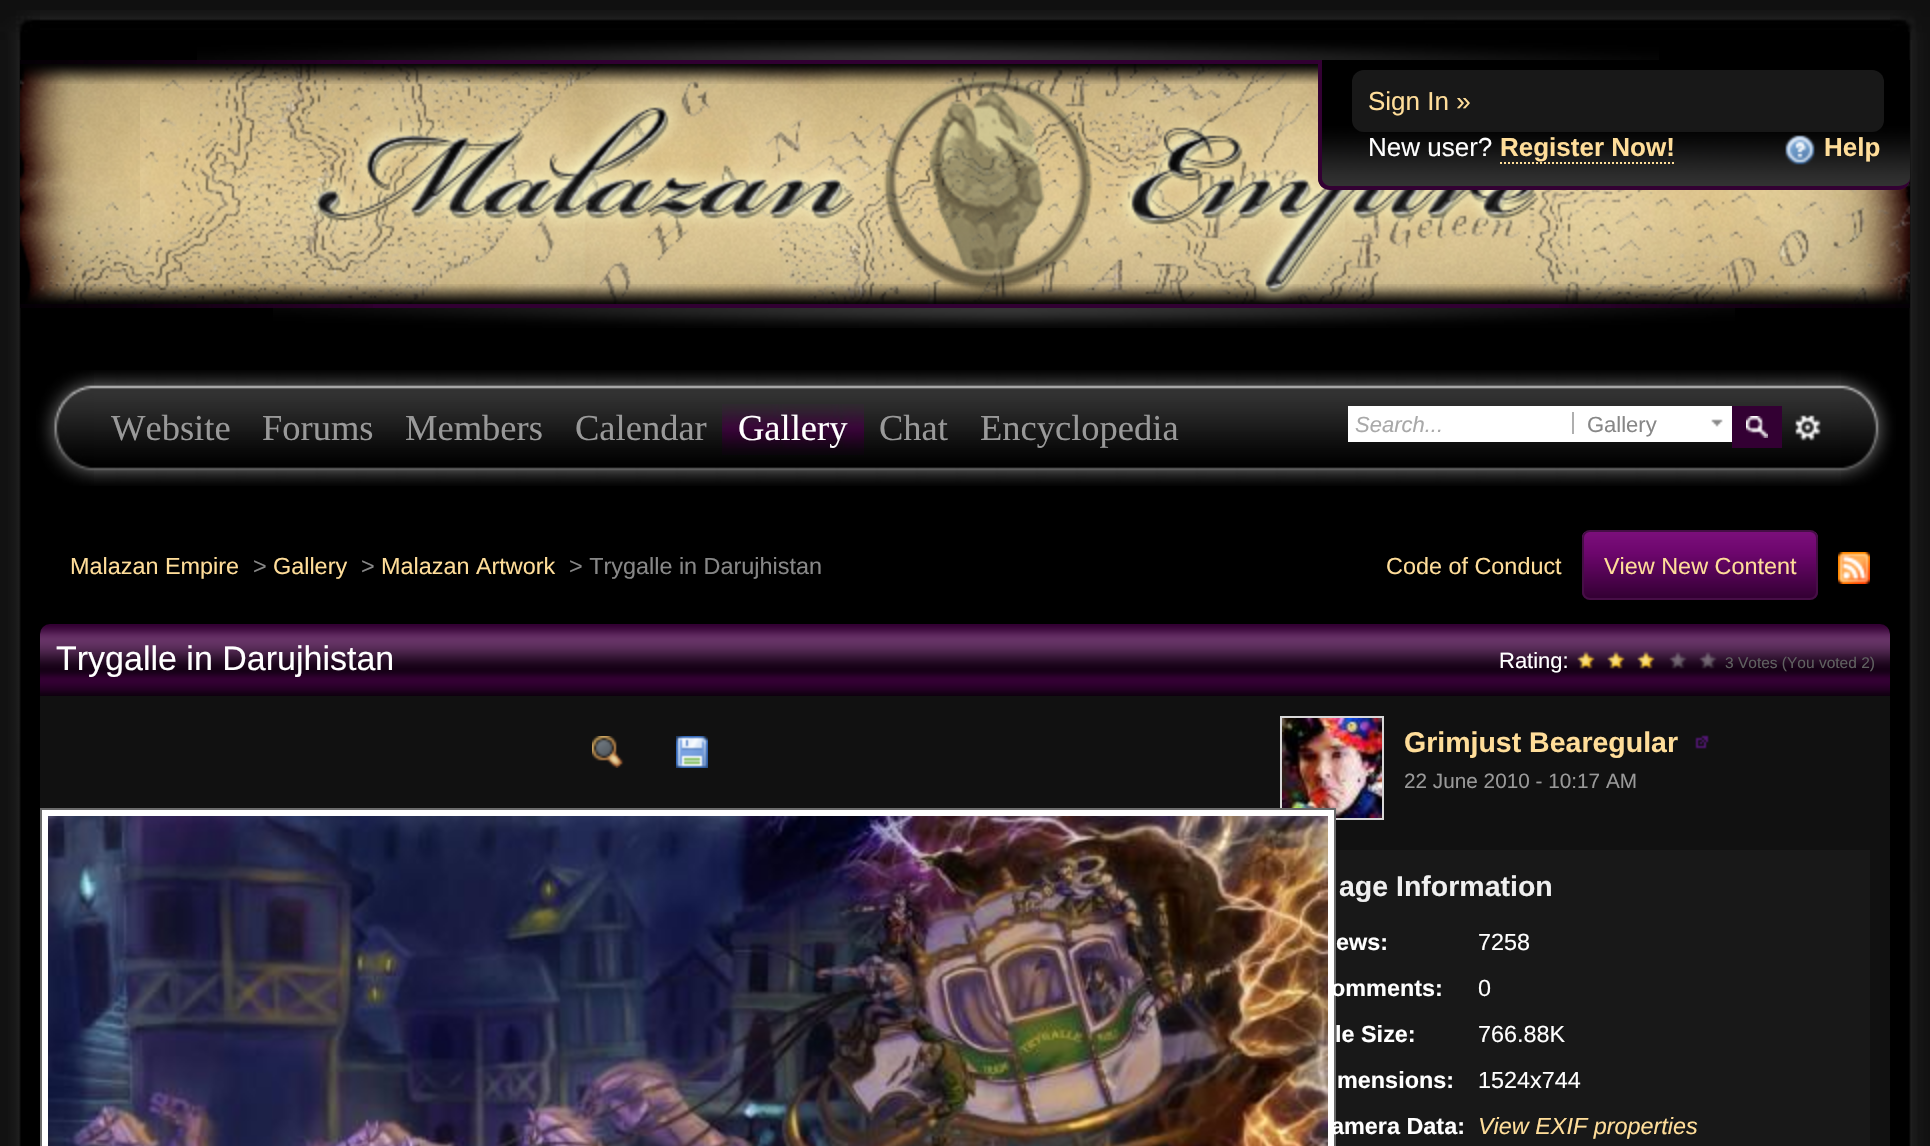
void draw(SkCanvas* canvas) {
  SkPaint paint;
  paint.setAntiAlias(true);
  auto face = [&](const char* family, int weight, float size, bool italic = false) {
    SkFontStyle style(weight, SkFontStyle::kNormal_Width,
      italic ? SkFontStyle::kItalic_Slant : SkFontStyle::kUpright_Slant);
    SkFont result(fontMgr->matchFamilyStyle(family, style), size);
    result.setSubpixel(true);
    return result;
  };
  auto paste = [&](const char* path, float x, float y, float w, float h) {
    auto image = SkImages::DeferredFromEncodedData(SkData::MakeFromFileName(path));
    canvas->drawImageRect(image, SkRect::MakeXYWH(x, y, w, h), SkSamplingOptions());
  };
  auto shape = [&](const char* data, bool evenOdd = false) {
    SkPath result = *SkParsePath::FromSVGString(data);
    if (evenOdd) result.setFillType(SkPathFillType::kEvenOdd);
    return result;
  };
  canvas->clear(0xff101010);
  paste("img/1.png", 40, 10, 1850, 30);
  paste("img/2.png", 1890, 10, 40, 30);
  paste("img/3.png", 0, 10, 40, 30);
  paint.setColor(0xff000000);
  canvas->drawRect(SkRect::MakeXYWH(21, 40, 1888, 1106), paint);
  paste("img/4.png", 0, 40, 21, 1106);
  paste("img/5.png", 1909, 40, 21, 1106);
  paste("img/6.png", 197, 40, 1462, 20);
  paint.setColor(0xff310032);
  canvas->drawRect(SkRect::MakeXYWH(373, 60, 945, 4), paint);
  paste("img/7.png", 20, 60, 353, 4);
  paste("img/8.png", 140, 64, 1650, 240);
  paste("img/9.png", 20, 64, 120, 240);
  paste("img/10.png", 1790, 178, 120, 126);
  paste("img/11.png", 20, 64, 1890, 240);
  paste("img/12.png", 23, 64, 1295, 20);
  paste("img/13.png", 25, 284, 1885, 20);
  paste("img/14.png", 305, 79, 1240, 224);
  paint.setColor(0xff000000);
  canvas->drawPath(shape("M1322 60H1910V178C1910 182 1905 186 1898 186H1330C1326 186 1322 182 1322 178Z"), paint);
  paste("img/15.png", 1318, 126, 592, 60);
  paint.setColor(0xff330033);
  canvas->drawPath(shape("M1318 60H1910V178C1910 185 1905 190 1898 190H1330C1323 190 1318 185 1318 178ZM1322 60H1910V178C1910 182 1905 186 1898 186H1330C1326 186 1322 182 1322 178Z", true), paint);
  paint.setColor(0xff181818);
  canvas->drawRoundRect(SkRect::MakeXYWH(1352, 70, 532, 62), 12, 12, paint);
  paint.setStroke(true);
  paint.setStrokeWidth(2);
  paint.setColor(0xffffdd99);
  paint.setPathEffect(SkDashPathEffect::Make({{2, 2}}, 0));
  canvas->drawPath(shape("M1500 163H1674"), paint);
  paint.setPathEffect(nullptr);
  paste("img/16.png", 1785, 135, 30, 30);
  paint.setStroke(false);
  paint.setColor(0xff310032);
  canvas->drawRect(SkRect::MakeXYWH(373, 304, 1186, 4), paint);
  paste("img/7.png", 20, 304, 353, 4);
  paste("img/17.png", 1559, 304, 351, 4);
  paste("img/18.png", 273, 308, 1462, 20);
  paste("img/19.png", 94, 370, 1747, 116);
  paste("img/20.png", 36, 370, 58, 116);
  paste("img/21.png", 722, 404, 142, 51);
  paste("img/22.png", 1841, 370, 55, 116);
  paint.setColor(0xffffffff);
  canvas->drawRect(SkRect::MakeXYWH(1348, 406, 384, 36), paint);
  paste("img/23.png", 1711, 419, 12, 8);
  paint.setColor(0xffafafaf);
  canvas->drawRect(SkRect::MakeXYWH(1572, 412, 2, 22), paint);
  paint.setColor(0xff330033);
  canvas->drawRect(SkRect::MakeXYWH(1732, 406, 50, 42), paint);
  paste("img/24.png", 1746, 416, 22, 22);
  paste("img/25.png", 1795, 415, 26, 26);
  canvas->save();
  canvas->clipPath(shape("M1590 530H1810C1814.5 530 1818 533.5 1818 538V592C1818 596.5 1814.5 600 1810 600H1590C1585.5 600 1582 596.5 1582 592V538C1582 533.5 1585.5 530 1590 530Z"), true);
  {
    const SkColor colors[] = {0xff330033, 0xff6d066d, 0xff7b0f7b};
    const float stops[] = {0, 0.68f, 1};
    const SkPoint ends[] = {{1700, 598}, {1700, 532}};
    paint.setShader(SkGradientShader::MakeLinear(ends, colors, stops, 3, SkTileMode::kClamp));
    paint.setAlpha(255);
  }
  canvas->drawRect(SkRect::MakeXYWH(1582, 532, 236, 66), paint);
  canvas->restore();
  paint.setStroke(true);
  paint.setShader(nullptr);
  paint.setColor(0xff460e46);
  canvas->drawRoundRect(SkRect::MakeXYWH(1583, 531, 234, 68), 7, 7, paint);
  paste("img/26.png", 1838, 552, 32, 32);
  paste("img/27.png", 40, 624, 1850, 72);
  paste("img/28.png", 1577, 651, 18, 18);
  paste("img/28.png", 1607, 651, 18, 18);
  paste("img/28.png", 1637, 651, 18, 18);
  paste("img/29.png", 1669, 652, 18, 17);
  paste("img/29.png", 1699, 652, 18, 17);
  paint.setStroke(false);
  paint.setColor(0xff111111);
  canvas->drawRect(SkRect::MakeXYWH(40, 696, 1850, 450), paint);
  paste("img/30.png", 592, 736, 32, 32);
  paste("img/31.png", 676, 736, 32, 32);
  paint.setStroke(true);
  paint.setColor(0xffd8d8d8);
  canvas->drawRect(SkRect::MakeXYWH(1281, 717, 102, 102), paint);
  paste("img/33.png", 1282, 718, 100, 100);
  paint.setStroke(false);
  paint.setColor(0xffffffff);
  canvas->drawRect(SkRect::MakeXYWH(41, 809, 1294, 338), paint);
  paint.setStroke(true);
  paint.setColor(0xff6a6a6a);
  canvas->drawRect(SkRect::MakeXYWH(41, 809, 1294, 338), paint);
  paste("img/32.png", 48, 816, 1280, 330);
  paste("img/34.png", 1695, 735, 14, 14);
  paint.setStroke(false);
  paint.setColor(0xff181818);
  canvas->drawRect(SkRect::MakeXYWH(1336, 850, 534, 296), paint);
  auto f0 = face("Liberation Sans", 400, 26);
  paint.setColor(0xffffdd99);
  canvas->drawString("Sign In »", 1368, 110, f0, paint);
  paint.setColor(0xffffffff);
  canvas->drawString("New user?", 1368, 156, f0, paint);
  auto f1 = face("Liberation Sans", 700, 26);
  paint.setColor(0xffffdd99);
  canvas->drawString("Register Now!", 1500, 156, f1, paint);
  canvas->drawString("Help", 1824, 156, f1, paint);
  auto f2 = face("Liberation Serif", 400, 36.5f);
  paint.setColor(0xff999999);
  {
    const struct { const char* s; float x, y; } items[] = {
      {"Website", 111, 440},
      {"Forums", 262, 440},
      {"Members", 405, 440},
      {"Calendar", 575, 440},
    };
    for (auto [s, x, y] : items) {
      canvas->drawString(s, x, y, f2, paint);
    }
  }
  paint.setColor(0xffffffff);
  canvas->drawString("Gallery", 738, 440, f2, paint);
  paint.setColor(0xff999999);
  canvas->drawString("Chat", 879, 440, f2, paint);
  canvas->drawString("Encyclopedia", 980, 440, f2, paint);
  auto f3 = face("Liberation Sans", 400, 22, true);
  paint.setColor(0xffa9a9a9);
  canvas->drawString("Search...", 1355, 432, f3, paint);
  auto f4 = face("Liberation Sans", 400, 22);
  paint.setColor(0xff878787);
  canvas->drawString("Gallery", 1587, 432, f4, paint);
  auto f5 = face("Liberation Sans", 400, 23.4f);
  paint.setColor(0xffffdd99);
  canvas->drawString("Malazan Empire", 70, 574, f5, paint);
  paint.setColor(0xff878787);
  canvas->drawString(">", 253, 574, f5, paint);
  paint.setColor(0xffffdd99);
  canvas->drawString("Gallery", 273, 574, f5, paint);
  paint.setColor(0xff878787);
  canvas->drawString(">", 361, 574, f5, paint);
  paint.setColor(0xffffdd99);
  canvas->drawString("Malazan Artwork", 381, 574, f5, paint);
  paint.setColor(0xff878787);
  canvas->drawString("> Trygalle in Darujhistan", 569, 574, f5, paint);
  paint.setColor(0xffffdd99);
  canvas->drawString("Code of Conduct", 1386, 574, f5, paint);
  canvas->drawString("View New Content", 1604, 574, f5, paint);
  auto f6 = face("Liberation Sans", 400, 34);
  paint.setColor(0xffffffff);
  canvas->drawString("Trygalle in Darujhistan", 56, 670, f6, paint);
  canvas->drawString("Rating:", 1499, 668, f4, paint);
  auto f7 = face("Liberation Sans", 400, 15.5f);
  paint.setColor(0xff606060);
  canvas->drawString("3 Votes (You voted 2)", 1725, 668, f7, paint);
  auto f8 = face("Liberation Sans", 700, 28.5f);
  paint.setColor(0xffffdd99);
  canvas->drawString("Grimjust Bearegular", 1404, 752, f8, paint);
  auto f9 = face("Liberation Sans", 400, 20.75f);
  paint.setColor(0xff999999);
  canvas->drawString("22 June 2010 - 10:17 AM", 1404, 788, f9, paint);
  paint.setColor(0xffefefef);
  canvas->drawString("age Information", 1339, 896, f8, paint);
  auto f10 = face("Liberation Sans", 700, 23.4f);
  paint.setColor(0xffffffff);
  canvas->drawString("ews:", 1336, 950, f10, paint);
  canvas->drawString("7258", 1478, 950, f5, paint);
  canvas->drawString("omments:", 1331, 996, f10, paint);
  canvas->drawString("0", 1478, 996, f5, paint);
  canvas->drawString("le Size:", 1335, 1042, f10, paint);
  canvas->drawString("766.88K", 1478, 1042, f5, paint);
  canvas->drawString("mensions:", 1337, 1088, f10, paint);
  canvas->drawString("1524x744", 1478, 1088, f5, paint);
  canvas->drawString("amera Data:", 1331, 1134, f10, paint);
  auto f11 = face("Liberation Sans", 400, 23.4f, true);
  paint.setColor(0xffffdd99);
  canvas->drawString("View EXIF properties", 1478, 1134, f11, paint);
}
